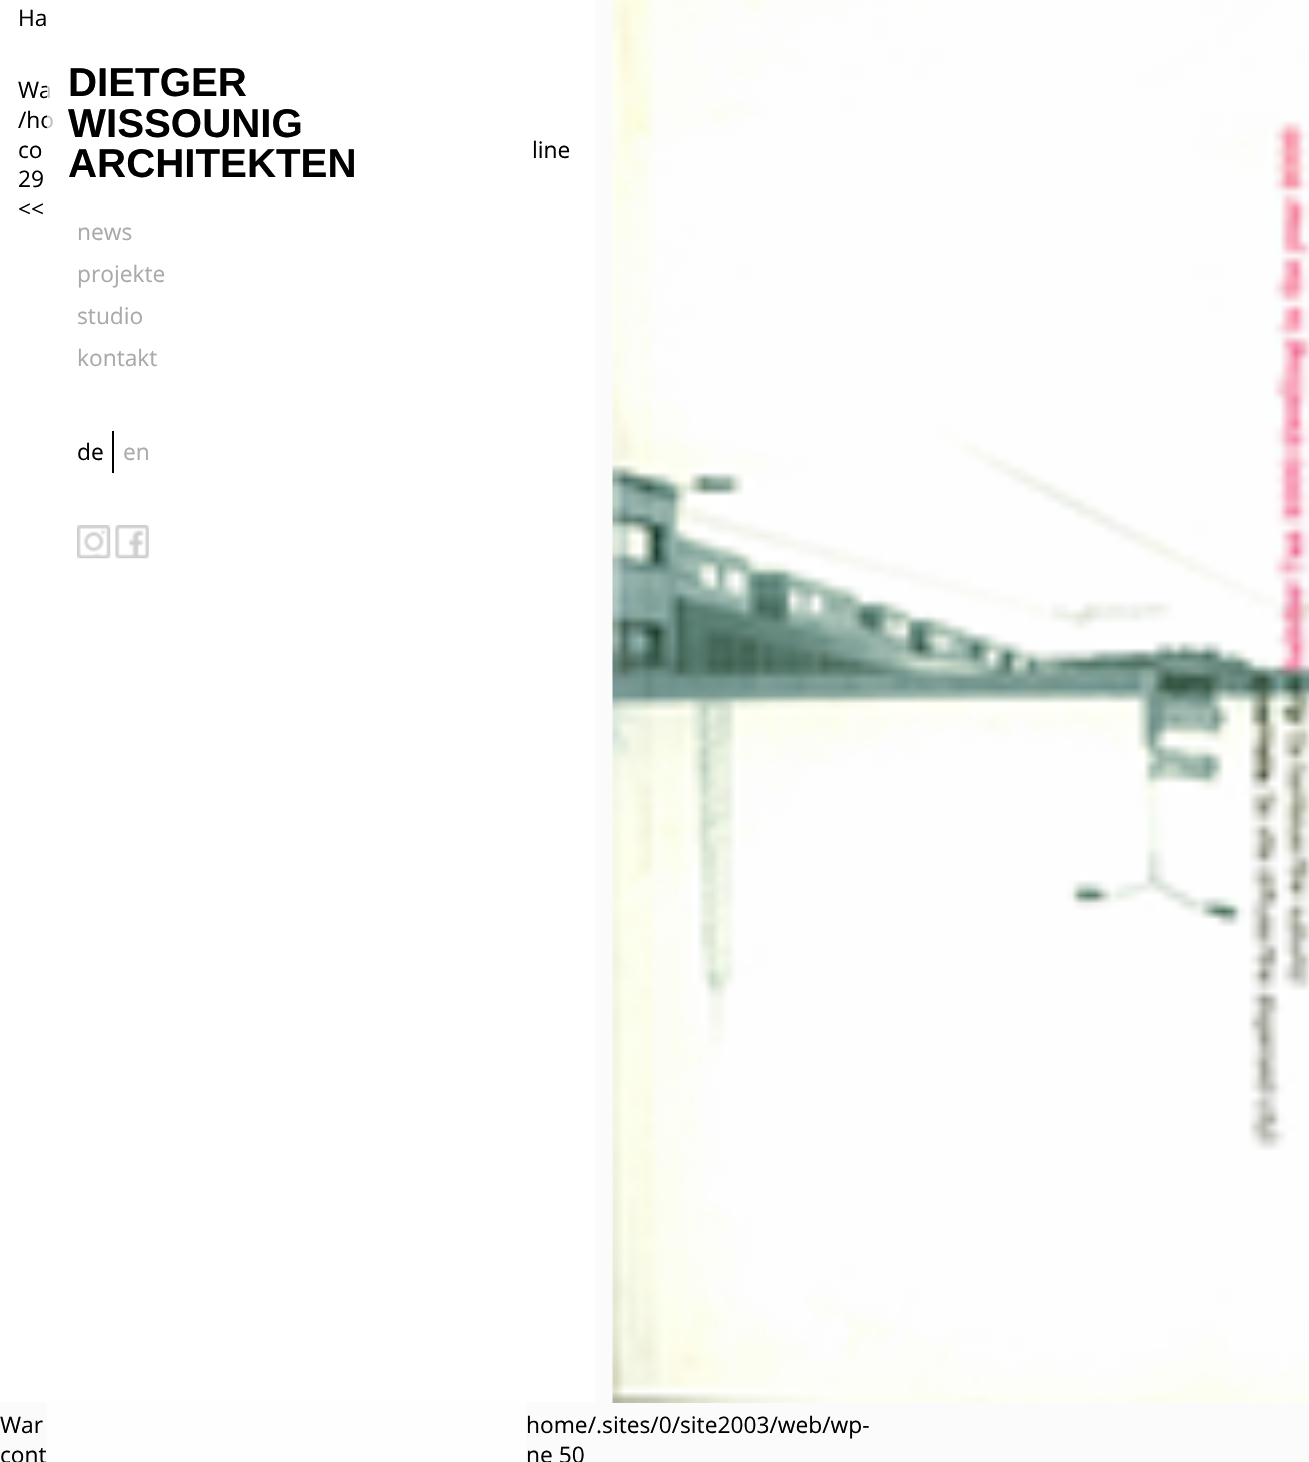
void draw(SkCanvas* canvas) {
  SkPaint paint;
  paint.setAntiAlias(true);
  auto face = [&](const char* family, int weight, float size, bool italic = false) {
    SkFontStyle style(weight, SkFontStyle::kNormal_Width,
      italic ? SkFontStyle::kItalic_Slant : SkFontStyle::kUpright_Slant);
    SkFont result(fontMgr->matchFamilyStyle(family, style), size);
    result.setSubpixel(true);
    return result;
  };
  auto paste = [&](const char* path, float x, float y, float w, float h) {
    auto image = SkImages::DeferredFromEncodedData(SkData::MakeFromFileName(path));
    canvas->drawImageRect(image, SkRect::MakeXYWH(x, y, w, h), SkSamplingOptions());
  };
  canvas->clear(0xfffbfbfb);
  paint.setColor(0xffffffff);
  canvas->drawRect(SkRect::MakeXYWH(0, 0, 595, 1402), paint);
  paste("img/1.png", 612, 0, 697, 1403);
  auto f0 = face("Open Sans", 400, 22.75f);
  paint.setColor(0xff000000);
  {
    const struct { const char* s; float x, y; } items[] = {
      {"Ha", 18, 26},
      {"Wa", 18, 98},
      {"/ho", 18, 128},
      {"co", 18, 158},
      {"line", 532, 158},
      {"29", 18, 187},
      {"<<", 18, 217},
      {"War", 0, 1433},
      {"home/.sites/0/site2003/web/wp-", 526, 1433},
      {"cont", 0, 1463},
      {"ne 50", 526, 1463},
    };
    for (auto [s, x, y] : items) {
      canvas->drawString(s, x, y, f0, paint);
    }
  }
  paint.setColor(0xbfffffff);
  canvas->drawRect(SkRect::MakeXYWH(47, 85, 479, 1377), paint);
  auto f1 = face("Liberation Sans", 700, 40.25f);
  paint.setColor(0xff000000);
  {
    const struct { const char* s; float x, y; } items[] = {
      {"DIETGER", 68, 96},
      {"WISSOUNIG", 68, 137},
      {"ARCHITEKTEN", 68, 177},
    };
    for (auto [s, x, y] : items) {
      canvas->drawString(s, x, y, f1, paint);
    }
  }
  paint.setColor(0xffaaaaaa);
  {
    const struct { const char* s; float x, y; } items[] = {
      {"news", 77, 240},
      {"projekte", 77, 282},
      {"studio", 77, 324},
      {"kontakt", 77, 366},
    };
    for (auto [s, x, y] : items) {
      canvas->drawString(s, x, y, f0, paint);
    }
  }
  paint.setColor(0xff000000);
  canvas->drawRect(SkRect::MakeXYWH(112, 431, 2, 42), paint);
  canvas->drawString("de", 77, 460, f0, paint);
  paint.setColor(0xffaaaaaa);
  canvas->drawString("en", 123, 460, f0, paint);
  paste("img/2.png", 77, 525, 34, 34);
  paste("img/3.png", 115, 525, 34, 34);
}
